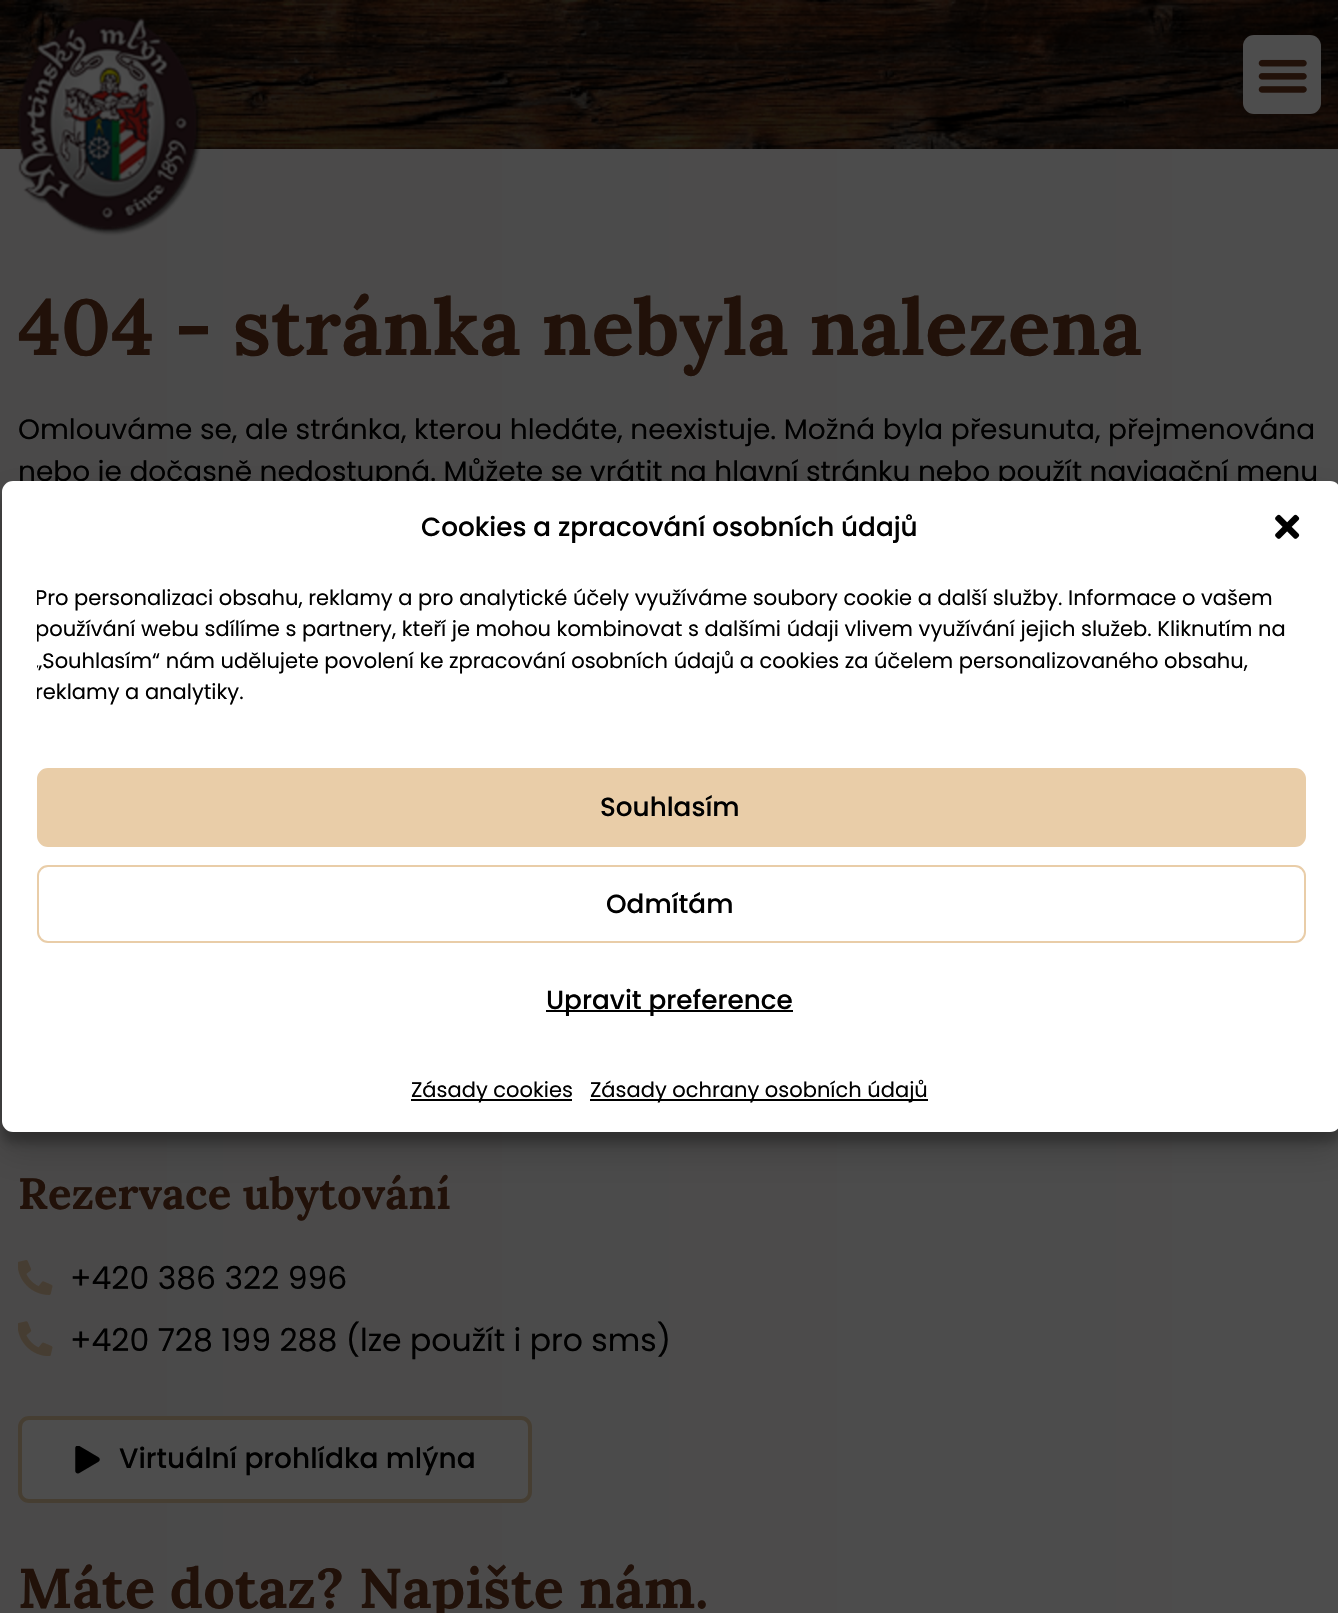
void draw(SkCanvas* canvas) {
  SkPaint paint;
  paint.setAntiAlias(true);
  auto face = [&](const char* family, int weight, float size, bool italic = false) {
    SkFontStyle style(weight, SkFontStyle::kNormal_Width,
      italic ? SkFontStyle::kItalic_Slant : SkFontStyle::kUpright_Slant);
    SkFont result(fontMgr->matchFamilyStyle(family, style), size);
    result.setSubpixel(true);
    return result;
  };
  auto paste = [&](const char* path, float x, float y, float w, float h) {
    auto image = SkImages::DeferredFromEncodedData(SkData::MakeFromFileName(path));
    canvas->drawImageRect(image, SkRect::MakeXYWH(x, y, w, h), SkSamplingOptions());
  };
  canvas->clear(0xffffffff);
  paste("img/1.png", 0, 0, 1338, 149);
  {
    const SkColor colors[] = {0xff4a4949, 0xff4d4d4d};
    const float stops[] = {0, 1};
    const SkPoint ends[] = {{0, 1412}, {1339, 1412}};
    paint.setShader(SkGradientShader::MakeLinear(ends, colors, stops, 2, SkTileMode::kClamp));
    paint.setAlpha(255);
  }
  canvas->drawRect(SkRect::MakeXYWH(0, 149, 1338, 1464), paint);
  paste("img/2.png", 17, 17, 185, 219);
  paint.setShader(nullptr);
  paint.setColor(0xff4d4d4d);
  canvas->drawRoundRect(SkRect::MakeXYWH(1243, 35, 78, 79), 11, 11, paint);
  paste("img/3.png", 1258, 59, 49, 34);
  paste("img/4.png", 18, 1260, 35, 35);
  paste("img/5.png", 18, 1321, 35, 35);
  canvas->drawRoundRect(SkRect::MakeXYWH(20, 1418, 510, 83), 9, 9, paint);
  paint.setStroke(true);
  paint.setStrokeWidth(4);
  paint.setColor(0xff463e32);
  canvas->drawRoundRect(SkRect::MakeXYWH(20, 1418, 510, 83), 9, 9, paint);
  paste("img/6.png", 75, 1446, 25, 28);
  paint.setStroke(false);
  paint.setColor(0x3b000000);
  paint.setMaskFilter(SkMaskFilter::MakeBlur(kNormal_SkBlurStyle, 5));
  canvas->drawRoundRect(SkRect::MakeXYWH(2, 492, 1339, 651), 11, 11, paint);
  paint.setMaskFilter(nullptr);
  paint.setColor(0x30000000);
  paint.setMaskFilter(SkMaskFilter::MakeBlur(kNormal_SkBlurStyle, 17.5f));
  canvas->drawRoundRect(SkRect::MakeXYWH(2, 499, 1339, 651), 11, 11, paint);
  paint.setMaskFilter(nullptr);
  auto f0 = face("Lora", 700, 78.75f);
  paint.setColor(0xff211109);
  canvas->drawString("404 - stránka nebyla nalezena", 18, 355, f0, paint);
  auto f1 = face("Poppins", 400, 28);
  paint.setColor(0xff000000);
  canvas->drawString("Omlouváme se, ale stránka, kterou hledáte, neexistuje. Možná byla přesunuta, přejmenována", 18, 439, f1, paint);
  canvas->drawString("nebo je dočasně nedostupná. Můžete se vrátit na hlavní stránku nebo použít navigační menu", 18, 481, f1, paint);
  auto f2 = face("Lora", 700, 43.75f);
  paint.setColor(0xff211109);
  canvas->drawString("Rezervace ubytování", 18, 1209, f2, paint);
  auto f3 = face("Poppins", 400, 31.5f);
  paint.setColor(0xff000000);
  canvas->drawString("+420 386 322 996", 70, 1289, f3, paint);
  canvas->drawString("+420 728 199 288 (lze použít i pro sms)", 70, 1351, f3, paint);
  auto f4 = face("Poppins", 500, 28);
  canvas->drawString("Virtuální prohlídka mlýna", 119, 1468, f4, paint);
  auto f5 = face("Lora", 700, 56);
  paint.setColor(0xff211109);
  canvas->drawString("Máte dotaz? Napište nám.", 18, 1608, f5, paint);
  paint.setColor(0xffffffff);
  canvas->drawRoundRect(SkRect::MakeXYWH(2, 481, 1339, 651), 11, 11, paint);
  auto f6 = face("Poppins", 500, 26.25f);
  paint.setColor(0xff000000);
  canvas->drawString("Cookies a zpracování osobních údajů", 421, 536, f6, paint);
  paste("img/7.png", 1275, 514, 25, 25);
  canvas->save();
  canvas->clipRect(SkRect::MakeXYWH(37, 583, 1269, 150));
  auto f7 = face("Poppins", 400, 21);
  {
    const struct { const char* s; float x, y; } items[] = {
      {"Pro personalizaci obsahu, reklamy a pro analytické účely využíváme soubory cookie a další služby. Informace o vašem", 35, 605},
      {"používání webu sdílíme s partnery, kteří je mohou kombinovat s dalšími údaji vlivem využívání jejich služeb. Kliknutím na", 35, 636},
      {"„Souhlasím“ nám udělujete povolení ke zpracování osobních údajů a cookies za účelem personalizovaného obsahu,", 35, 668},
      {"reklamy a analytiky.", 35, 699},
    };
    for (auto [s, x, y] : items) {
      canvas->drawString(s, x, y, f7, paint);
    }
  }
  canvas->restore();
  paint.setColor(0xffe9cda8);
  canvas->drawRoundRect(SkRect::MakeXYWH(38, 769, 1267, 77), 10, 10, paint);
  paint.setStroke(true);
  paint.setStrokeWidth(2);
  canvas->drawRoundRect(SkRect::MakeXYWH(38, 769, 1267, 77), 10, 10, paint);
  paint.setStroke(false);
  paint.setColor(0xff000000);
  canvas->drawString("Souhlasím", 600, 816, f6, paint);
  paint.setStroke(true);
  paint.setColor(0xffe9cda8);
  canvas->drawRoundRect(SkRect::MakeXYWH(38, 866, 1267, 76), 10, 10, paint);
  paint.setStroke(false);
  paint.setColor(0xff000000);
  canvas->drawString("Odmítám", 606, 913, f6, paint);
  canvas->drawRect(SkRect::MakeXYWH(546, 1010, 247, 2), paint);
  canvas->drawString("Upravit preference", 546, 1009, f6, paint);
  canvas->drawRect(SkRect::MakeXYWH(411, 1099, 161, 2), paint);
  canvas->drawString("Zásady cookies", 411, 1097, f7, paint);
  canvas->drawRect(SkRect::MakeXYWH(590, 1099, 338, 2), paint);
  canvas->drawString("Zásady ochrany osobních údajů", 590, 1097, f7, paint);
}
